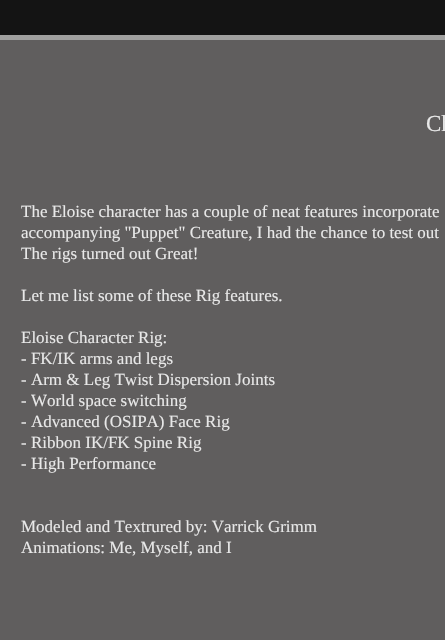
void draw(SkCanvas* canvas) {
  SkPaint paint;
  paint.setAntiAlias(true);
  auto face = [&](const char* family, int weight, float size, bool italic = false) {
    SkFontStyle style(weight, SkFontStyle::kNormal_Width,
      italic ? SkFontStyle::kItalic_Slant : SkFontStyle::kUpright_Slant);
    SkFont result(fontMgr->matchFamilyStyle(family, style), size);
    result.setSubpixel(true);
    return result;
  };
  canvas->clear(0xff605e5e);
  paint.setColor(0xff141414);
  canvas->drawRect(SkRect::MakeXYWH(0, 0, 445, 35), paint);
  paint.setColor(0xffa0a09f);
  canvas->drawRect(SkRect::MakeXYWH(0, 35, 445, 5), paint);
  auto f0 = face("Liberation Serif", 400, 23);
  paint.setColor(0xffe8e8e8);
  canvas->drawString("Ch", 426, 131, f0, paint);
  auto f1 = face("Liberation Serif", 400, 17);
  {
    const struct { const char* s; float x, y; } items[] = {
      {"The Eloise character has a couple of neat features incorporate", 21, 217},
      {"accompanying \"Puppet\" Creature, I had the chance to test out", 21, 238},
      {"The rigs turned out Great!", 21, 259},
      {"Let me list some of these Rig features.", 21, 301},
      {"Eloise Character Rig:", 21, 343},
      {"- FK/IK arms and legs", 21, 364},
      {"- Arm & Leg Twist Dispersion Joints", 21, 385},
      {"- World space switching", 21, 406},
      {"- Advanced (OSIPA) Face Rig", 21, 427},
      {"- Ribbon IK/FK Spine Rig", 21, 448},
      {"- High Performance", 21, 469},
      {"Modeled and Textrured by: Varrick Grimm", 21, 532},
      {"Animations: Me, Myself, and I", 21, 553},
    };
    for (auto [s, x, y] : items) {
      canvas->drawString(s, x, y, f1, paint);
    }
  }
}
